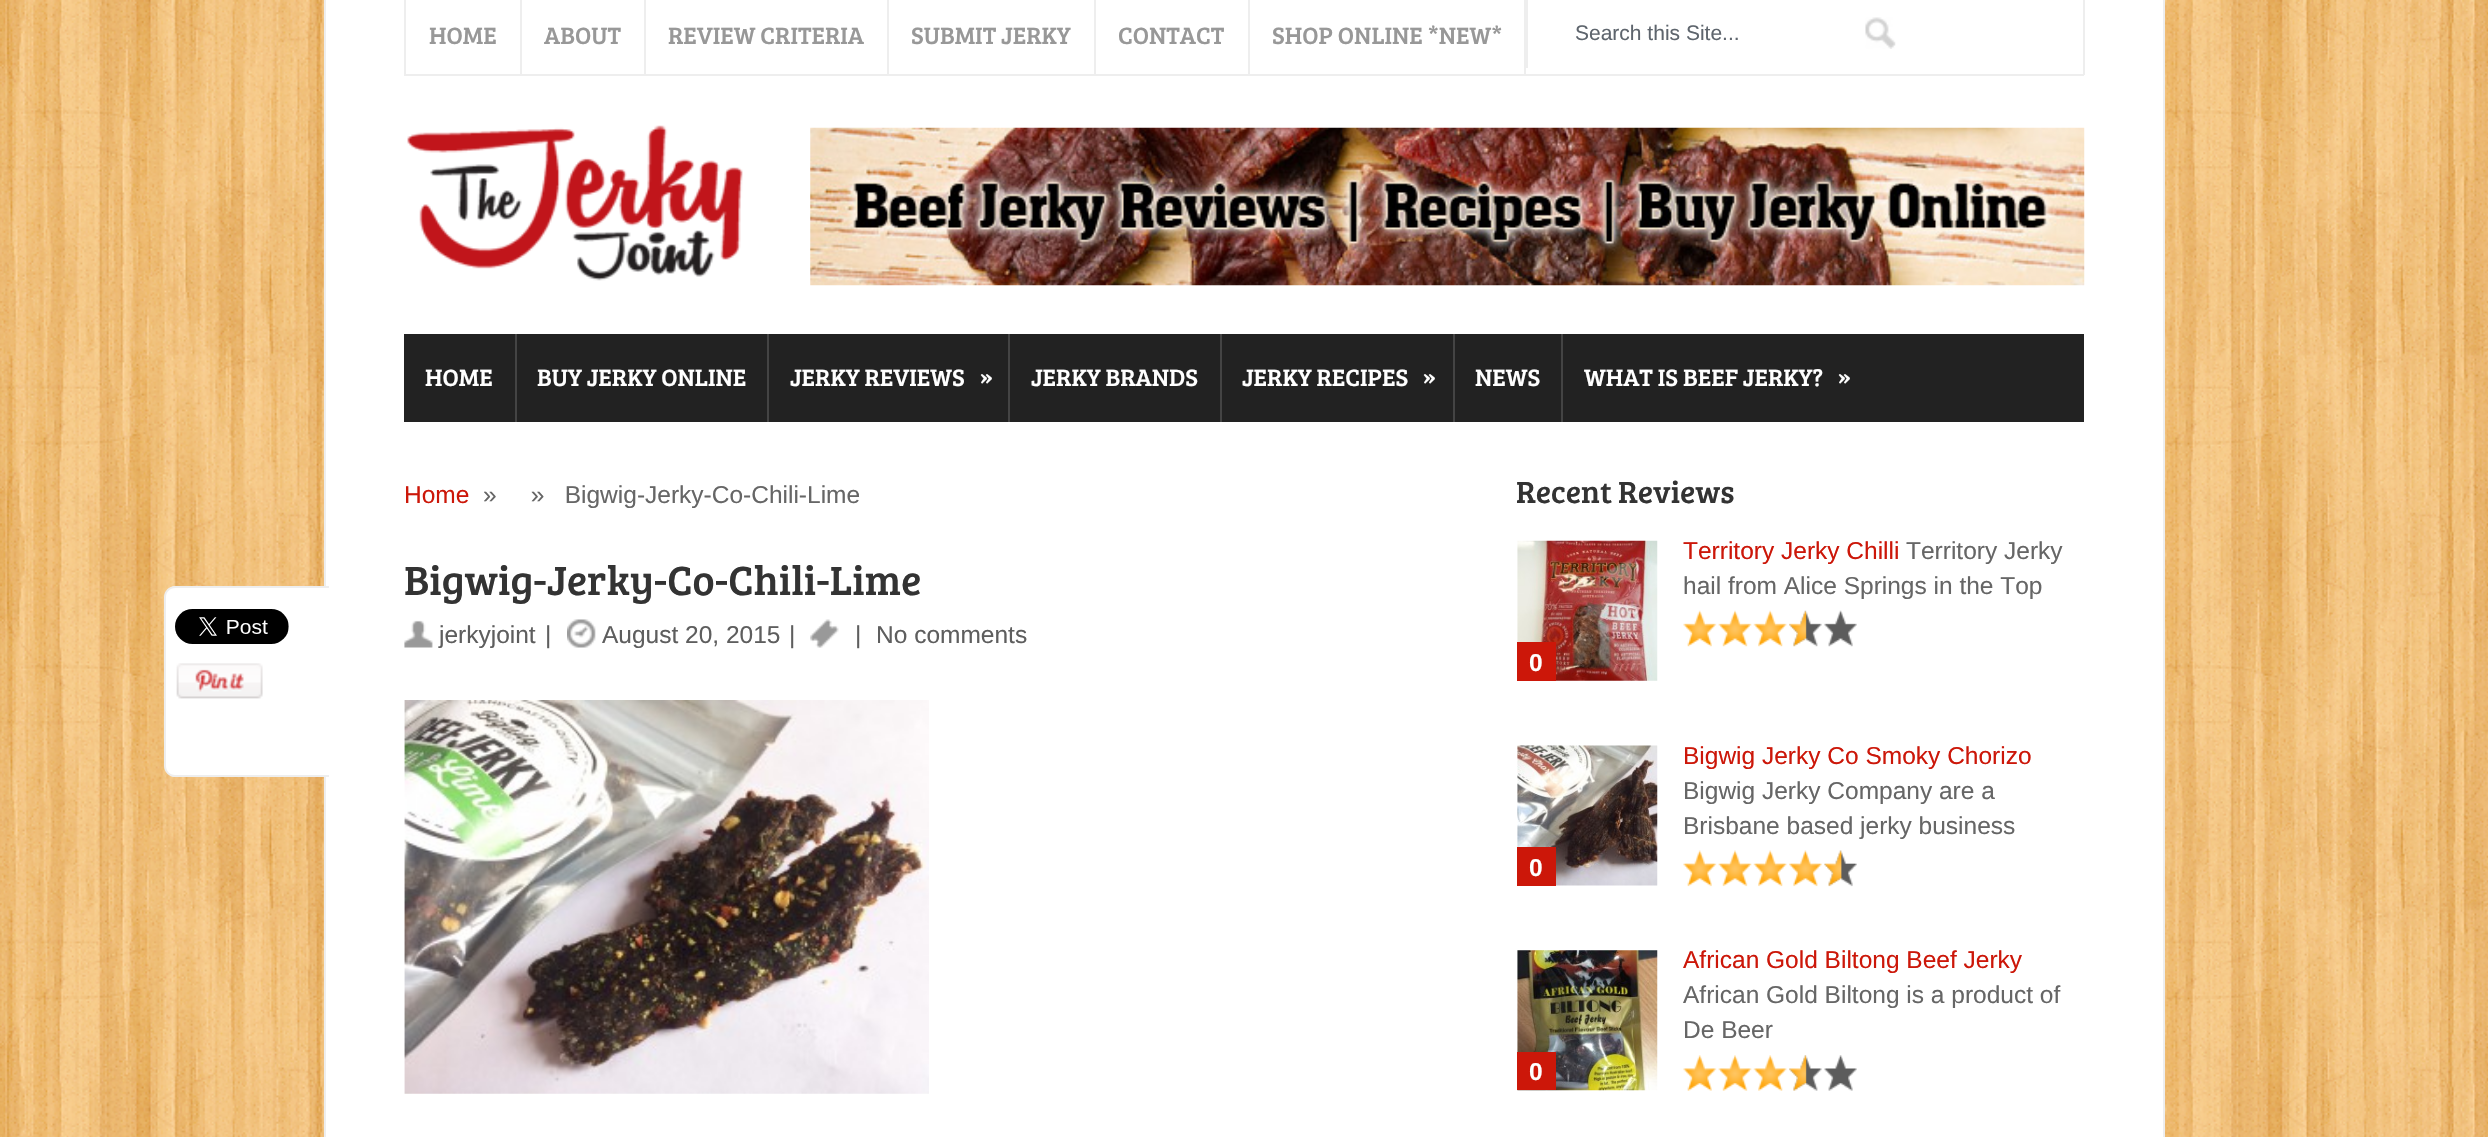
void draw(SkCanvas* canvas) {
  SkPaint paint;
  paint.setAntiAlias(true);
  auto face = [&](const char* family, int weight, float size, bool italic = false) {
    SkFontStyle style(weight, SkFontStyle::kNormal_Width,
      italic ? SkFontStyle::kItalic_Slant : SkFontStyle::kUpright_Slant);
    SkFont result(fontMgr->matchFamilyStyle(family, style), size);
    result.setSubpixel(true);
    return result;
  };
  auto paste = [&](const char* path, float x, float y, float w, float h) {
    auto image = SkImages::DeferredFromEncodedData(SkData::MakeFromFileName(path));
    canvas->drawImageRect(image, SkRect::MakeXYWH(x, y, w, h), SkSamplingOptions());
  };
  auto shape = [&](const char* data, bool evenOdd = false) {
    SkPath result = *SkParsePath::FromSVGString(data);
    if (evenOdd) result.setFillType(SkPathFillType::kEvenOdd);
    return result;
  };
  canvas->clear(0xffffffff);
  paste("img/1.png", 0, 0, 2488, 1137);
  {
    const struct { float x, y, w, h; SkColor color; } items[] = {
      {326, 0, 1837, 1137, 0xffffffff},
      {2163, 0, 2, 1137, 0xffeeeeee},
      {324, 0, 2, 1137, 0xffeeeeee},
      {2083, 0, 2, 75, 0xffeeeeee},
      {404, 74, 1680, 2, 0xffeeeeee},
      {404, 0, 2, 75, 0xffeeeeee},
      {520, 0, 2, 74, 0xffeeeeee},
      {644, 0, 2, 74, 0xffeeeeee},
      {887, 0, 2, 74, 0xffeeeeee},
      {1094, 0, 2, 74, 0xffeeeeee},
      {1248, 0, 2, 74, 0xffeeeeee},
      {1524, 0, 2, 74, 0xffeeeeee},
      {1526, 0, 2, 68, 0xffeeeeee},
    };
    for (auto [x, y, w, h, color] : items) {
      paint.setColor(color);
      canvas->drawRect(SkRect::MakeXYWH(x, y, w, h), paint);
    }
  }
  paste("img/2.png", 1865, 17, 31, 32);
  paste("img/3.png", 407, 125, 336, 156);
  paste("img/4.png", 810, 127, 1275, 159);
  {
    const struct { float x, y, w, h; SkColor color; } items[] = {
      {404, 334, 1680, 88, 0xff222222},
      {515, 334, 2, 88, 0xff444444},
      {767, 334, 2, 88, 0xff444444},
      {1008, 334, 2, 88, 0xff444444},
      {1220, 334, 2, 88, 0xff444444},
      {1453, 334, 2, 88, 0xff444444},
      {1561, 334, 2, 88, 0xff444444},
    };
    for (auto [x, y, w, h, color] : items) {
      paint.setColor(color);
      canvas->drawRect(SkRect::MakeXYWH(x, y, w, h), paint);
    }
  }
  paint.setColor(0xffffffff);
  canvas->drawPath(shape("M176 586H329V777H176C170 777 165 772 165 766V597C165 591 170 586 176 586Z"), paint);
  paint.setColor(0xffeeeeee);
  canvas->drawPath(shape("M175 586H329V777H175C169 777 164 772 164 766V597C164 591 169 586 175 586ZM175 588H329V775H175C170 775 166 771 166 766V597C166 592 170 588 175 588Z", true), paint);
  paste("img/5.png", 175, 609, 114, 35);
  paste("img/6.png", 176, 663, 87, 36);
  paste("img/7.png", 404, 620, 29, 28);
  paste("img/8.png", 567, 619, 29, 29);
  paste("img/9.png", 810, 619, 29, 29);
  paste("img/10.png", 404, 700, 525, 394);
  paste("img/11.png", 1683, 610, 174, 37);
  paste("img/12.png", 1517, 540, 141, 141);
  paint.setColor(0xffcc1709);
  canvas->drawRect(SkRect::MakeXYWH(1517, 642, 39, 39), paint);
  paste("img/13.png", 1517, 745, 141, 141);
  canvas->drawRect(SkRect::MakeXYWH(1517, 847, 39, 39), paint);
  paste("img/14.png", 1683, 850, 174, 37);
  paste("img/15.png", 1517, 950, 141, 141);
  canvas->drawRect(SkRect::MakeXYWH(1517, 1052, 39, 38), paint);
  paste("img/16.png", 1683, 1055, 174, 36);
  auto f0 = face("Bree Serif", 400, 24.5f);
  paint.setColor(0xff989898);
  {
    const struct { const char* s; float x, y; } items[] = {
      {"HOME", 429, 44},
      {"ABOUT", 544, 44},
      {"REVIEW CRITERIA", 668, 44},
      {"SUBMIT JERKY", 911, 44},
      {"CONTACT", 1118, 44},
      {"SHOP ONLINE *NEW*", 1272, 44},
    };
    for (auto [s, x, y] : items) {
      canvas->drawString(s, x, y, f0, paint);
    }
  }
  auto f1 = face("Liberation Sans", 400, 21);
  paint.setColor(0xff5e656d);
  canvas->drawString("Search this Site...", 1575, 40, f1, paint);
  paint.setColor(0xffffffff);
  {
    const struct { const char* s; float x, y; } items[] = {
      {"HOME", 425, 386},
      {"BUY JERKY ONLINE", 537, 386},
      {"JERKY REVIEWS", 790, 386},
      {"»", 980, 385},
      {"JERKY BRANDS", 1031, 386},
      {"JERKY RECIPES", 1242, 386},
      {"»", 1423, 385},
      {"NEWS", 1475, 386},
      {"WHAT IS BEEF JERKY?", 1584, 386},
      {"»", 1838, 385},
    };
    for (auto [s, x, y] : items) {
      canvas->drawString(s, x, y, f0, paint);
    }
  }
  auto f2 = face("Liberation Sans", 400, 24.5f);
  paint.setColor(0xffcc1709);
  canvas->drawString("Home", 404, 503, f2, paint);
  paint.setColor(0xff666666);
  canvas->drawString("»     »   Bigwig-Jerky-Co-Chili-Lime", 483, 503, f2, paint);
  auto f3 = face("Bree Serif", 400, 42);
  paint.setColor(0xff333333);
  canvas->drawString("Bigwig-Jerky-Co-Chili-Lime", 404, 595, f3, paint);
  paint.setColor(0xff5e5e5e);
  {
    const struct { const char* s; float x, y; } items[] = {
      {"jerkyjoint", 439, 643},
      {"|", 545, 643},
      {"August 20, 2015", 602, 643},
      {"|", 789, 643},
      {"|", 855, 643},
      {"No comments", 876, 643},
    };
    for (auto [s, x, y] : items) {
      canvas->drawString(s, x, y, f2, paint);
    }
  }
  auto f4 = face("Bree Serif", 400, 31.5f);
  paint.setColor(0xff333333);
  canvas->drawString("Recent Reviews", 1516, 503, f4, paint);
  paint.setColor(0xffcc1709);
  canvas->drawString("Territory Jerky Chilli", 1683, 559, f2, paint);
  paint.setColor(0xff666666);
  canvas->drawString("Territory Jerky", 1906, 559, f2, paint);
  canvas->drawString("hail from Alice Springs in the Top", 1683, 594, f2, paint);
  auto f5 = face("Liberation Sans", 700, 24.5f);
  paint.setColor(0xffffffff);
  canvas->drawString("0", 1529, 671, f5, paint);
  paint.setColor(0xffcc1709);
  canvas->drawString("Bigwig Jerky Co Smoky Chorizo", 1683, 764, f2, paint);
  paint.setColor(0xff666666);
  canvas->drawString("Bigwig Jerky Company are a", 1683, 799, f2, paint);
  canvas->drawString("Brisbane based jerky business", 1683, 834, f2, paint);
  paint.setColor(0xffffffff);
  canvas->drawString("0", 1529, 876, f5, paint);
  paint.setColor(0xffcc1709);
  canvas->drawString("African Gold Biltong Beef Jerky", 1683, 968, f2, paint);
  paint.setColor(0xff666666);
  canvas->drawString("African Gold Biltong is a product of", 1683, 1003, f2, paint);
  canvas->drawString("De Beer", 1683, 1038, f2, paint);
  paint.setColor(0xffffffff);
  canvas->drawString("0", 1529, 1080, f5, paint);
}
